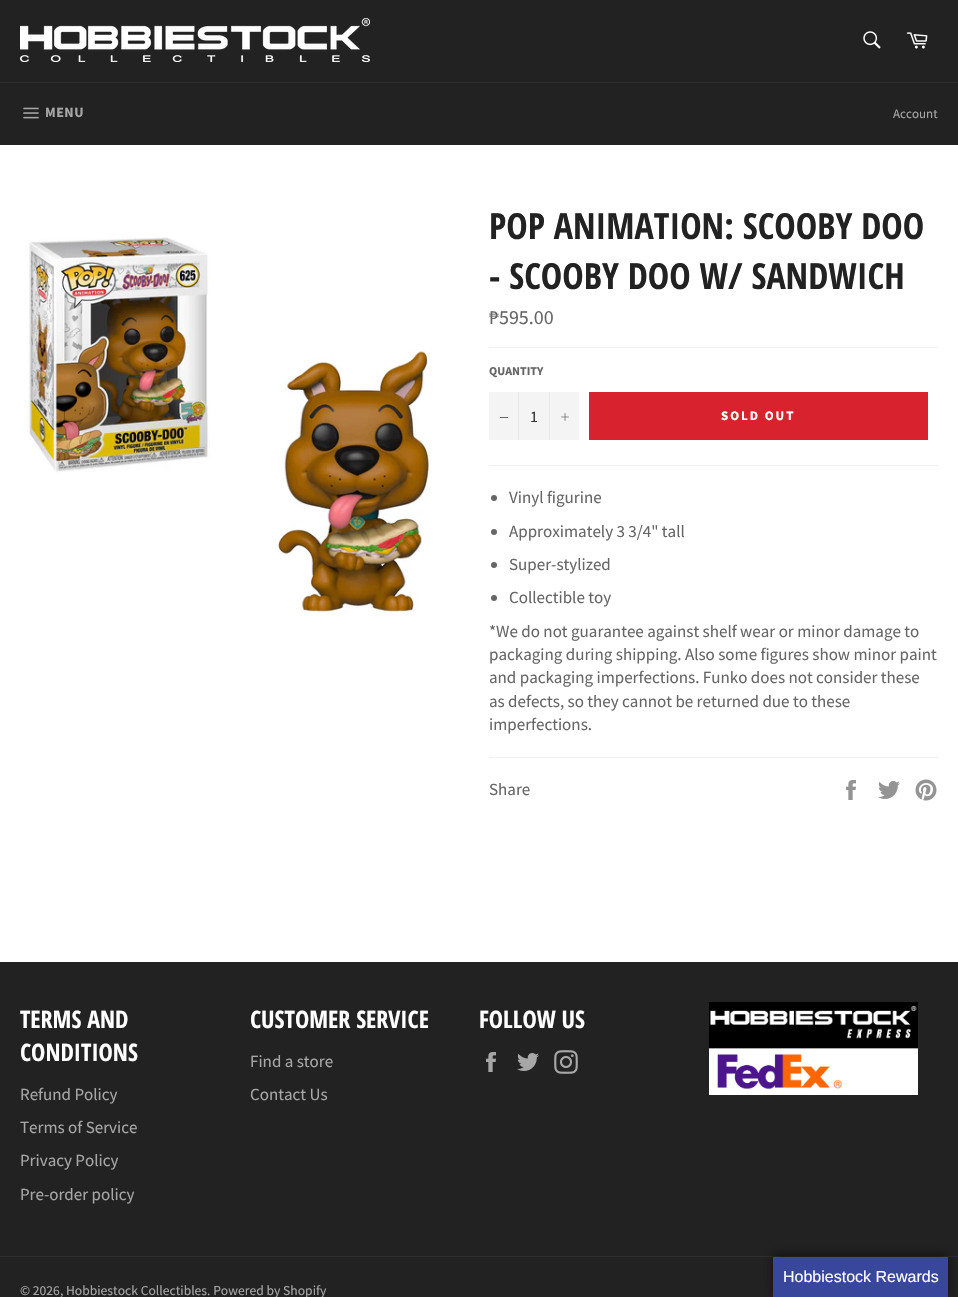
void draw(SkCanvas* canvas) {
  SkPaint paint;
  paint.setAntiAlias(true);
  auto face = [&](const char* family, int weight, float size, bool italic = false) {
    SkFontStyle style(weight, SkFontStyle::kNormal_Width,
      italic ? SkFontStyle::kItalic_Slant : SkFontStyle::kUpright_Slant);
    SkFont result(fontMgr->matchFamilyStyle(family, style), size);
    result.setSubpixel(true);
    return result;
  };
  auto writeSpaced = [&](const char* s, float x, float y, const SkFont& font, const SkPaint& ink, float letter, float word) {
    std::vector<SkGlyphID> glyphs(font.countText(s, strlen(s), SkTextEncoding::kUTF8));
    std::vector<float> xs(glyphs.size());
    font.textToGlyphs(s, strlen(s), SkTextEncoding::kUTF8, glyphs);
    font.getXPos(glyphs, xs, x);
    float extra = 0;
    for (size_t i = 0; i < glyphs.size(); i++) {
      xs[i] += extra;
      extra += letter + word * (glyphs[i] == font.unicharToGlyph(' '));
    }
    canvas->drawTextBlob(SkTextBlob::MakeFromPosHGlyphs(glyphs, xs, y, font), 0, 0, ink);
  };
  auto paste = [&](const char* path, float x, float y, float w, float h) {
    auto image = SkImages::DeferredFromEncodedData(SkData::MakeFromFileName(path));
    canvas->drawImageRect(image, SkRect::MakeXYWH(x, y, w, h), SkSamplingOptions());
  };
  canvas->clear(0xff222222);
  paste("img/1.png", 20, 18, 350, 44);
  paste("img/2.png", 863, 31, 18, 18);
  paste("img/3.png", 906, 32, 22, 17);
  paint.setColor(0xff2f2f2f);
  canvas->drawRect(SkRect::MakeXYWH(0, 82, 958, 1), paint);
  paste("img/4.png", 23, 107, 16, 12);
  paint.setColor(0xffffffff);
  canvas->drawRect(SkRect::MakeXYWH(0, 145, 958, 817), paint);
  paste("img/5.png", 27, 237, 404, 376);
  {
    const struct { float x, y, w, h; SkColor color; } items[] = {
      {489, 347, 449, 1, 0xfff0f0f0},
      {489, 392, 90, 48, 0xfff4f4f4},
      {518, 392, 1, 48, 0xffe7e7e7},
      {500, 417, 8, 1, 0xff666666},
      {549, 392, 1, 48, 0xffe7e7e7},
    };
    for (auto [x, y, w, h, color] : items) {
      paint.setColor(color);
      canvas->drawRect(SkRect::MakeXYWH(x, y, w, h), paint);
    }
  }
  paste("img/6.png", 561, 413, 8, 8);
  paint.setColor(0xffd8232f);
  canvas->drawRect(SkRect::MakeXYWH(589, 392, 339, 48), paint);
  paint.setColor(0xfff0f0f0);
  canvas->drawRect(SkRect::MakeXYWH(489, 465, 449, 1), paint);
  paint.setColor(0xff666666);
  canvas->drawCircle(494, 498, 3, paint);
  canvas->drawCircle(494, 532, 3, paint);
  canvas->drawCircle(494, 565, 3, paint);
  canvas->drawCircle(494, 598, 3, paint);
  paint.setColor(0xfff0f0f0);
  canvas->drawRect(SkRect::MakeXYWH(489, 757, 449, 1), paint);
  paste("img/7.png", 846, 780, 10, 20);
  paste("img/8.png", 878, 781, 22, 18);
  paste("img/9.png", 915, 779, 22, 22);
  paste("img/10.png", 486, 1052, 10, 20);
  paste("img/11.png", 517, 1053, 22, 18);
  paste("img/12.png", 554, 1050, 24, 24);
  paste("img/13.png", 709, 1002, 209, 93);
  paint.setColor(0xff2f2f2f);
  canvas->drawRect(SkRect::MakeXYWH(0, 1256, 958, 1), paint);
  paint.setColor(0x80000000);
  paint.setMaskFilter(SkMaskFilter::MakeBlur(kNormal_SkBlurStyle, 5));
  canvas->drawRect(SkRect::MakeXYWH(773, 1254, 175, 40), paint);
  paint.setMaskFilter(nullptr);
  paint.setColor(0xff38469b);
  canvas->drawRect(SkRect::MakeXYWH(773, 1257, 175, 40), paint);
  auto f0 = face("Source Sans Pro", 700, 14);
  paint.setColor(0xffa7a7a7);
  writeSpaced("MENU", 45, 117, f0, paint, 0.5f, 0);
  auto f1 = face("Source Sans Pro", 400, 13);
  canvas->drawString("Account", 893, 118, f1, paint);
  auto f2 = face("Open Sans Condensed", 700, 36);
  paint.setColor(0xff222222);
  canvas->drawString("POP ANIMATION: SCOOBY DOO", 489, 239, f2, paint);
  canvas->drawString("- SCOOBY DOO W/ SANDWICH", 489, 289, f2, paint);
  auto f3 = face("Source Sans Pro", 400, 20);
  paint.setColor(0xff666666);
  canvas->drawString("₱595.00", 489, 324, f3, paint);
  auto f4 = face("Source Sans Pro", 700, 12);
  canvas->drawString("QUANTITY", 489, 375, f4, paint);
  auto f5 = face("Source Sans Pro", 400, 16);
  paint.setColor(0xff333333);
  canvas->drawString("1", 530, 422, f5, paint);
  auto f6 = face("Source Sans Pro", 700, 13);
  paint.setColor(0xffffffff);
  writeSpaced("SOLD OUT", 721, 420, f6, paint, 2, 0);
  auto f7 = face("Source Sans Pro", 400, 17);
  paint.setColor(0xff666666);
  {
    const struct { const char* s; float x, y; } items[] = {
      {"Vinyl figurine", 509, 503},
      {"Approximately 3 3/4\" tall", 509, 537},
      {"Super-stylized", 509, 570},
      {"Collectible toy", 509, 603},
      {"*We do not guarantee against shelf wear or minor damage to", 489, 637},
      {"packaging during shipping. Also some figures show minor paint", 489, 660},
      {"and packaging imperfections. Funko does not consider these", 489, 683},
      {"as defects, so they cannot be returned due to these", 489, 707},
      {"imperfections.", 489, 730},
      {"Share", 489, 795},
    };
    for (auto [s, x, y] : items) {
      canvas->drawString(s, x, y, f7, paint);
    }
  }
  auto f8 = face("Open Sans Condensed", 700, 24);
  paint.setColor(0xffffffff);
  canvas->drawString("TERMS AND", 20, 1028, f8, paint);
  canvas->drawString("CONDITIONS", 20, 1061, f8, paint);
  paint.setColor(0xffa7a7a7);
  {
    const struct { const char* s; float x, y; } items[] = {
      {"Refund Policy", 20, 1100},
      {"Terms of Service", 20, 1133},
      {"Privacy Policy", 20, 1166},
      {"Pre-order policy", 20, 1200},
    };
    for (auto [s, x, y] : items) {
      canvas->drawString(s, x, y, f7, paint);
    }
  }
  paint.setColor(0xffffffff);
  canvas->drawString("CUSTOMER SERVICE", 250, 1028, f8, paint);
  paint.setColor(0xffa7a7a7);
  canvas->drawString("Find a store", 250, 1067, f7, paint);
  canvas->drawString("Contact Us", 250, 1100, f7, paint);
  paint.setColor(0xffffffff);
  canvas->drawString("FOLLOW US", 479, 1028, f8, paint);
  auto f9 = face("Source Sans Pro", 400, 13.6f);
  paint.setColor(0xffa7a7a7);
  canvas->drawString("© 2026, Hobbiestock Collectibles. Powered by Shopify", 20, 1295, f9, paint);
  auto f10 = face("Liberation Sans", 400, 16);
  paint.setColor(0xffffffff);
  canvas->drawString("Hobbiestock Rewards", 783, 1282, f10, paint);
}
